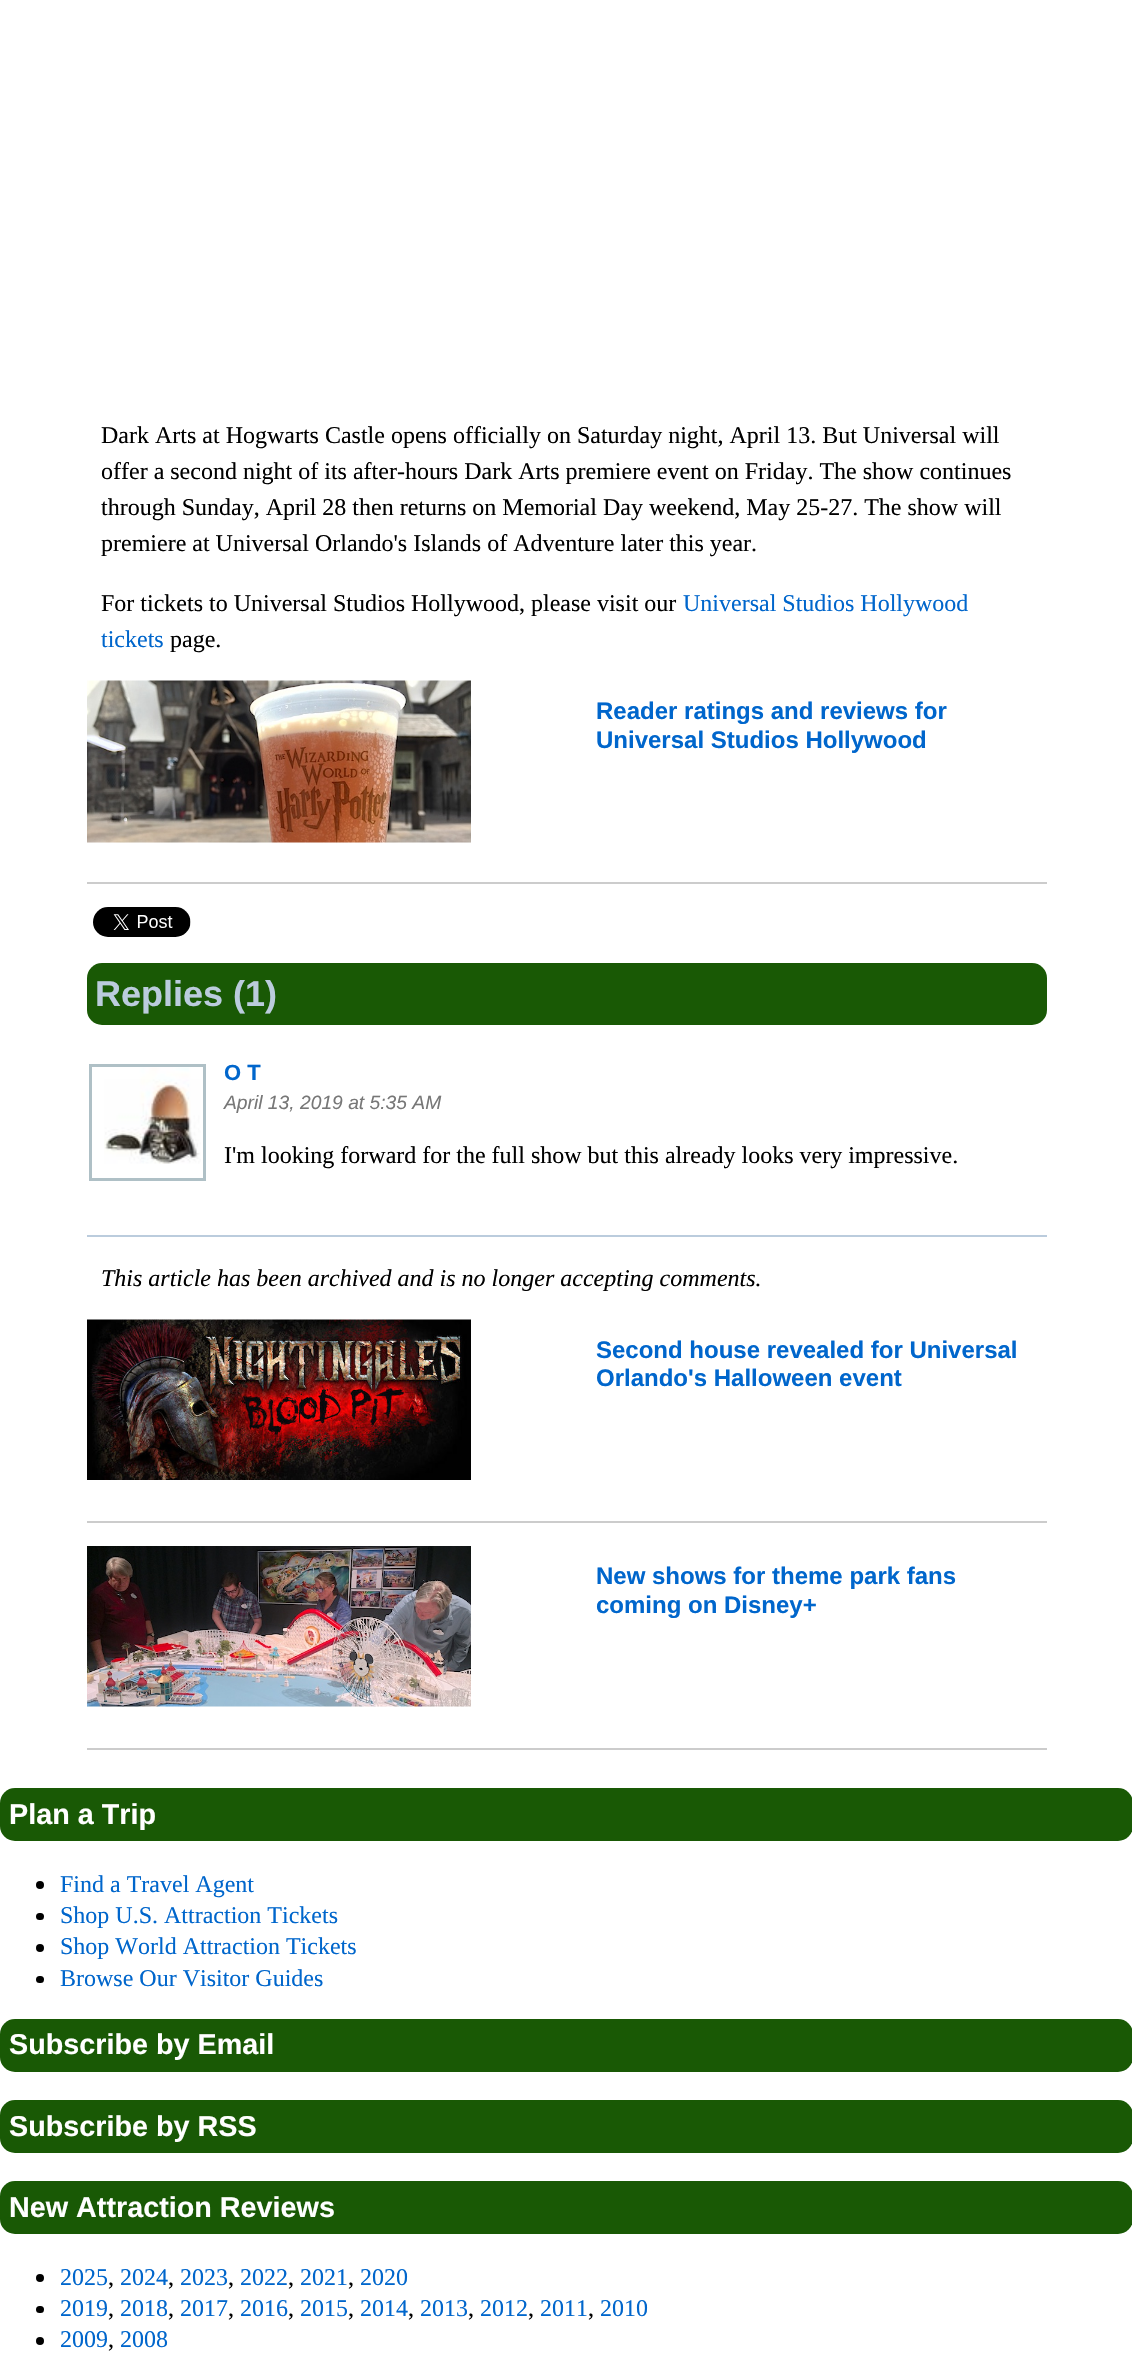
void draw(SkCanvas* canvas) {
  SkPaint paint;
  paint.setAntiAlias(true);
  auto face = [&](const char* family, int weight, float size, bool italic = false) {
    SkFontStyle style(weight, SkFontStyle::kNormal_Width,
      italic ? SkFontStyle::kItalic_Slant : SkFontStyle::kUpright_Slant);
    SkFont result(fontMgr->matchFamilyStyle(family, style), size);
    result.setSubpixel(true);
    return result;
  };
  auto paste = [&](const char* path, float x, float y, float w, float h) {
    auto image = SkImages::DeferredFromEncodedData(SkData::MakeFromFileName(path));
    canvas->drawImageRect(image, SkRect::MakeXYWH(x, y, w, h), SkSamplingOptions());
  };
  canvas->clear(0xffffffff);
  paint.setColor(0xffcccccc);
  canvas->drawRect(SkRect::MakeXYWH(87, 882, 960, 2), paint);
  paste("img/1.png", 87, 680, 384, 163);
  paste("img/2.png", 93, 907, 98, 30);
  paint.setColor(0xff195905);
  canvas->drawRoundRect(SkRect::MakeXYWH(87, 963, 960, 62), 15, 15, paint);
  paint.setColor(0xffbbccdd);
  canvas->drawRect(SkRect::MakeXYWH(87, 1235, 960, 2), paint);
  paint.setStroke(true);
  paint.setStrokeWidth(3);
  paint.setColor(0xffafc0c6);
  canvas->drawRect(SkRect::MakeXYWH(90.5f, 1065.5f, 114, 114), paint);
  paste("img/3.png", 104, 1067, 97, 97);
  paint.setStroke(false);
  paint.setColor(0xffcccccc);
  canvas->drawRect(SkRect::MakeXYWH(87, 1521, 960, 2), paint);
  paste("img/4.png", 87, 1319, 384, 161);
  canvas->drawRect(SkRect::MakeXYWH(87, 1748, 960, 2), paint);
  paste("img/5.png", 87, 1546, 384, 161);
  paint.setColor(0xff195905);
  canvas->drawRoundRect(SkRect::MakeXYWH(0, 1788, 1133, 53), 15, 15, paint);
  paint.setColor(0xff000000);
  canvas->drawCircle(40, 1885, 4, paint);
  canvas->drawRoundRect(SkRect::MakeXYWH(36, 1913, 8, 7), 3.5f, 3.5f, paint);
  canvas->drawCircle(40, 1948, 4, paint);
  canvas->drawRoundRect(SkRect::MakeXYWH(36, 1976, 8, 7), 3.5f, 3.5f, paint);
  paint.setColor(0xff195905);
  canvas->drawRoundRect(SkRect::MakeXYWH(0, 2019, 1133, 53), 15, 15, paint);
  canvas->drawRoundRect(SkRect::MakeXYWH(0, 2100, 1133, 53), 15, 15, paint);
  canvas->drawRoundRect(SkRect::MakeXYWH(0, 2181, 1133, 53), 15, 15, paint);
  paint.setColor(0xff000000);
  canvas->drawCircle(40, 2278, 4, paint);
  canvas->drawRoundRect(SkRect::MakeXYWH(36, 2306, 8, 7), 3.5f, 3.5f, paint);
  canvas->drawCircle(40, 2341, 4, paint);
  auto f0 = face("Liberation Serif", 400, 24);
  {
    const struct { const char* s; float x, y; } items[] = {
      {"Dark Arts at Hogwarts Castle opens officially on Saturday night, April 13. But Universal will", 101, 443},
      {"offer a second night of its after-hours Dark Arts premiere event on Friday. The show continues", 101, 479},
      {"through Sunday, April 28 then returns on Memorial Day weekend, May 25-27. The show will", 101, 515},
      {"premiere at Universal Orlando's Islands of Adventure later this year.", 101, 551},
      {"For tickets to Universal Studios Hollywood, please visit our", 101, 611},
    };
    for (auto [s, x, y] : items) {
      canvas->drawString(s, x, y, f0, paint);
    }
  }
  paint.setColor(0xff0066cc);
  canvas->drawString("Universal Studios Hollywood", 683, 611, f0, paint);
  canvas->drawString("tickets", 101, 647, f0, paint);
  paint.setColor(0xff000000);
  canvas->drawString("page.", 170, 647, f0, paint);
  auto f1 = face("Liberation Sans", 700, 24);
  paint.setColor(0xff0066cc);
  canvas->drawString("Reader ratings and reviews for", 596, 719, f1, paint);
  canvas->drawString("Universal Studios Hollywood", 596, 748, f1, paint);
  auto f2 = face("Liberation Sans", 700, 36);
  paint.setColor(0xffbbccdd);
  canvas->drawString("Replies (1)", 95, 1006, f2, paint);
  auto f3 = face("Liberation Sans", 700, 22);
  paint.setColor(0xff0066cc);
  canvas->drawString("O T", 224, 1080, f3, paint);
  auto f4 = face("Liberation Sans", 400, 19.25f, true);
  paint.setColor(0xff777777);
  canvas->drawString("April 13, 2019 at 5:35 AM", 224, 1109, f4, paint);
  paint.setColor(0xff000000);
  canvas->drawString("I'm looking forward for the full show but this already looks very impressive.", 224, 1163, f0, paint);
  auto f5 = face("Liberation Serif", 400, 24, true);
  canvas->drawString("This article has been archived and is no longer accepting comments.", 101, 1286, f5, paint);
  paint.setColor(0xff0066cc);
  {
    const struct { const char* s; float x, y; } items[] = {
      {"Second house revealed for Universal", 596, 1358},
      {"Orlando's Halloween event", 596, 1386},
      {"New shows for theme park fans", 596, 1584},
      {"coming on Disney+", 596, 1613},
    };
    for (auto [s, x, y] : items) {
      canvas->drawString(s, x, y, f1, paint);
    }
  }
  auto f6 = face("Liberation Sans", 700, 28.75f);
  paint.setColor(0xffffffff);
  canvas->drawString("Plan a Trip", 9, 1824, f6, paint);
  paint.setColor(0xff0066cc);
  {
    const struct { const char* s; float x, y; } items[] = {
      {"Find a Travel Agent", 60, 1892},
      {"Shop U.S. Attraction Tickets", 60, 1923},
      {"Shop World Attraction Tickets", 60, 1954},
      {"Browse Our Visitor Guides", 60, 1986},
    };
    for (auto [s, x, y] : items) {
      canvas->drawString(s, x, y, f0, paint);
    }
  }
  paint.setColor(0xffffffff);
  {
    const struct { const char* s; float x, y; } items[] = {
      {"Subscribe by Email", 9, 2054},
      {"Subscribe by RSS", 9, 2136},
      {"New Attraction Reviews", 9, 2217},
    };
    for (auto [s, x, y] : items) {
      canvas->drawString(s, x, y, f6, paint);
    }
  }
  paint.setColor(0xff0066cc);
  {
    const struct { const char* s; float x, y; } items[] = {
      {"2025", 60, 2285},
      {"2024", 120, 2285},
      {"2023", 180, 2285},
      {"2022", 240, 2285},
      {"2021", 300, 2285},
      {"2020", 360, 2285},
    };
    for (auto [s, x, y] : items) {
      canvas->drawString(s, x, y, f0, paint);
    }
  }
  paint.setColor(0xff000000);
  {
    const struct { const char* s; float x, y; } items[] = {
      {",", 108, 2285},
      {",", 168, 2285},
      {",", 228, 2285},
      {",", 288, 2285},
      {",", 348, 2285},
    };
    for (auto [s, x, y] : items) {
      canvas->drawString(s, x, y, f0, paint);
    }
  }
  paint.setColor(0xff0066cc);
  {
    const struct { const char* s; float x, y; } items[] = {
      {"2019", 60, 2316},
      {"2018", 120, 2316},
      {"2017", 180, 2316},
      {"2016", 240, 2316},
      {"2015", 300, 2316},
      {"2014", 360, 2316},
      {"2013", 420, 2316},
      {"2012", 480, 2316},
      {"2011", 540, 2316},
      {"2010", 600, 2316},
    };
    for (auto [s, x, y] : items) {
      canvas->drawString(s, x, y, f0, paint);
    }
  }
  paint.setColor(0xff000000);
  {
    const struct { const char* s; float x, y; } items[] = {
      {",", 108, 2316},
      {",", 168, 2316},
      {",", 228, 2316},
      {",", 288, 2316},
      {",", 348, 2316},
      {",", 408, 2316},
      {",", 468, 2316},
      {",", 528, 2316},
      {",", 588, 2316},
    };
    for (auto [s, x, y] : items) {
      canvas->drawString(s, x, y, f0, paint);
    }
  }
  paint.setColor(0xff0066cc);
  canvas->drawString("2009", 60, 2347, f0, paint);
  canvas->drawString("2008", 120, 2347, f0, paint);
  paint.setColor(0xff000000);
  canvas->drawString(",", 108, 2347, f0, paint);
}
